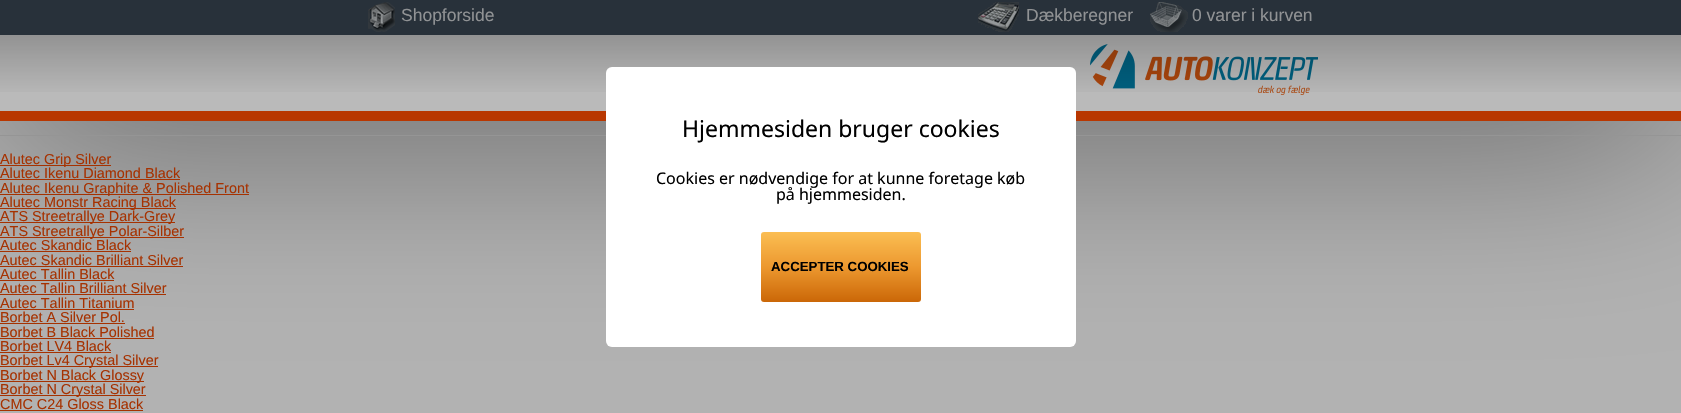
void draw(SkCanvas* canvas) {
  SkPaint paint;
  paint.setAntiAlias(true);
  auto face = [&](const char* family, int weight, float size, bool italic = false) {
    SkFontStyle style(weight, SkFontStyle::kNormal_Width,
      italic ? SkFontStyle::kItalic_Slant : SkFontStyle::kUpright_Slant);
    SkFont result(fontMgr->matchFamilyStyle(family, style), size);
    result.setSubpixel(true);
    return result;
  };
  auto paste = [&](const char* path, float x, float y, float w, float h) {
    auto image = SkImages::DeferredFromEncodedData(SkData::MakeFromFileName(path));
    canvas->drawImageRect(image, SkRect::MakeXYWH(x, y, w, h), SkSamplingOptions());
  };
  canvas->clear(0xffb2b2b2);
  paint.setColor(0xff4a4a4a);
  paint.setMaskFilter(SkMaskFilter::MakeBlur(kNormal_SkBlurStyle, 100));
  canvas->drawRect(SkRect::MakeXYWH(0, 0, 1681, 121), paint);
  paint.setMaskFilter(nullptr);
  paint.setColor(0xffbababa);
  canvas->drawRect(SkRect::MakeXYWH(0, 35, 1681, 76), paint);
  paint.setColor(0xffb83701);
  canvas->drawRect(SkRect::MakeXYWH(0, 111, 1681, 10), paint);
  paste("img/1.png", 1090, 44, 228, 51);
  {
    const SkColor colors[] = {0x36000000, 0x00000000};
    const float stops[] = {0, 1};
    const SkPoint ends[] = {{841, 35}, {841, 98}};
    paint.setShader(SkGradientShader::MakeLinear(ends, colors, stops, 2, SkTileMode::kClamp));
    paint.setAlpha(255);
  }
  canvas->drawRect(SkRect::MakeXYWH(0, 35, 1681, 57), paint);
  paint.setShader(nullptr);
  paint.setColor(0xff28313a);
  canvas->drawRect(SkRect::MakeXYWH(0, 0, 1681, 35), paint);
  paste("img/2.png", 368, 2, 27, 30);
  paste("img/3.png", 978, 2, 41, 30);
  paste("img/4.png", 1150, 2, 38, 30);
  {
    const struct { float x, y, w, h; SkColor color; } items[] = {
      {0, 135, 1681, 1, 0xff959595},
      {0, 165, 111, 1, 0xffa63201},
      {0, 179, 180, 1, 0xffa63201},
      {0, 194, 249, 1, 0xffa63201},
      {0, 208, 176, 1, 0xffa63201},
      {0, 222, 175, 1, 0xffa63201},
      {0, 237, 184, 1, 0xffa63201},
      {0, 251, 131, 1, 0xffa63201},
      {0, 266, 183, 1, 0xffa63201},
      {0, 280, 114, 1, 0xffa63201},
      {0, 294, 166, 1, 0xffa63201},
      {0, 309, 134, 1, 0xffa63201},
      {0, 323, 125, 1, 0xffa63201},
      {0, 338, 154, 1, 0xffa63201},
      {0, 352, 111, 1, 0xffa63201},
      {0, 366, 158, 1, 0xffa63201},
      {0, 381, 144, 1, 0xffa63201},
      {0, 395, 146, 1, 0xffa63201},
      {0, 410, 143, 1, 0xffa63201},
    };
    for (auto [x, y, w, h, color] : items) {
      paint.setColor(color);
      canvas->drawRect(SkRect::MakeXYWH(x, y, w, h), paint);
    }
  }
  paint.setColor(0xffffffff);
  canvas->drawRoundRect(SkRect::MakeXYWH(606, 67, 470, 280), 6, 6, paint);
  {
    const SkColor colors[] = {0xfffbbe52, 0xffec982f, 0xffcb6707};
    const float stops[] = {0, 0.5f, 1};
    const SkPoint ends[] = {{841, 232}, {841, 302}};
    paint.setShader(SkGradientShader::MakeLinear(ends, colors, stops, 3, SkTileMode::kClamp));
    paint.setAlpha(255);
  }
  canvas->drawRoundRect(SkRect::MakeXYWH(761, 232, 160, 70), 3, 3, paint);
  auto f0 = face("Liberation Sans", 400, 17.5f);
  paint.setShader(nullptr);
  paint.setColor(0xff909294);
  {
    const struct { const char* s; float x, y; } items[] = {
      {"Shopforside", 401, 21},
      {"Dækberegner", 1026, 21},
      {"0 varer i kurven", 1192, 21},
    };
    for (auto [s, x, y] : items) {
      canvas->drawString(s, x, y, f0, paint);
    }
  }
  auto f1 = face("Liberation Sans", 400, 14.4f);
  paint.setColor(0xffa63201);
  {
    const struct { const char* s; float x, y; } items[] = {
      {"Alutec Grip Silver", 0, 164},
      {"Alutec Ikenu Diamond Black", 0, 178},
      {"Alutec Ikenu Graphite & Polished Front", 0, 193},
      {"Alutec Monstr Racing Black", 0, 207},
      {"ATS Streetrallye Dark-Grey", 0, 221},
      {"ATS Streetrallye Polar-Silber", 0, 236},
      {"Autec Skandic Black", 0, 250},
      {"Autec Skandic Brilliant Silver", 0, 265},
      {"Autec Tallin Black", 0, 279},
      {"Autec Tallin Brilliant Silver", 0, 293},
      {"Autec Tallin Titanium", 0, 308},
      {"Borbet A Silver Pol.", 0, 322},
      {"Borbet B Black Polished", 0, 337},
      {"Borbet LV4 Black", 0, 351},
      {"Borbet Lv4 Crystal Silver", 0, 365},
      {"Borbet N Black Glossy", 0, 380},
      {"Borbet N Crystal Silver", 0, 394},
      {"CMC C24 Gloss Black", 0, 409},
    };
    for (auto [s, x, y] : items) {
      canvas->drawString(s, x, y, f1, paint);
    }
  }
  auto f2 = face("Noto Sans", 400, 23);
  paint.setColor(0xff000000);
  canvas->drawString("Hjemmesiden bruger cookies", 682, 137, f2, paint);
  auto f3 = face("Noto Sans", 400, 16);
  canvas->drawString("Cookies er nødvendige for at kunne foretage køb", 656, 184, f3, paint);
  canvas->drawString("på hjemmesiden.", 776, 200, f3, paint);
  auto f4 = face("Liberation Sans", 700, 13.25f);
  canvas->drawString("ACCEPTER COOKIES", 771, 271, f4, paint);
}
